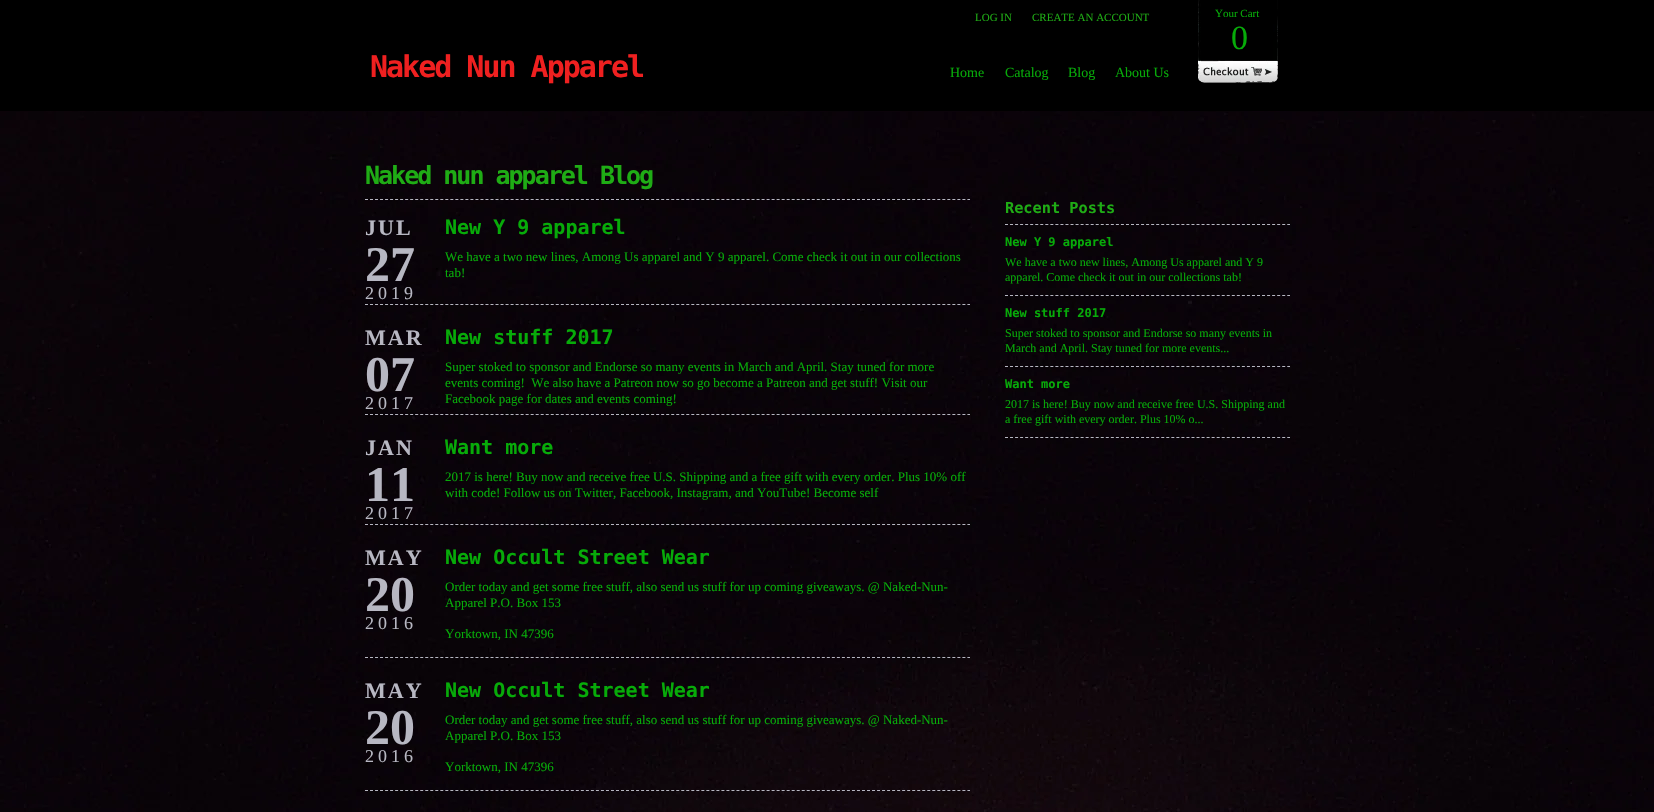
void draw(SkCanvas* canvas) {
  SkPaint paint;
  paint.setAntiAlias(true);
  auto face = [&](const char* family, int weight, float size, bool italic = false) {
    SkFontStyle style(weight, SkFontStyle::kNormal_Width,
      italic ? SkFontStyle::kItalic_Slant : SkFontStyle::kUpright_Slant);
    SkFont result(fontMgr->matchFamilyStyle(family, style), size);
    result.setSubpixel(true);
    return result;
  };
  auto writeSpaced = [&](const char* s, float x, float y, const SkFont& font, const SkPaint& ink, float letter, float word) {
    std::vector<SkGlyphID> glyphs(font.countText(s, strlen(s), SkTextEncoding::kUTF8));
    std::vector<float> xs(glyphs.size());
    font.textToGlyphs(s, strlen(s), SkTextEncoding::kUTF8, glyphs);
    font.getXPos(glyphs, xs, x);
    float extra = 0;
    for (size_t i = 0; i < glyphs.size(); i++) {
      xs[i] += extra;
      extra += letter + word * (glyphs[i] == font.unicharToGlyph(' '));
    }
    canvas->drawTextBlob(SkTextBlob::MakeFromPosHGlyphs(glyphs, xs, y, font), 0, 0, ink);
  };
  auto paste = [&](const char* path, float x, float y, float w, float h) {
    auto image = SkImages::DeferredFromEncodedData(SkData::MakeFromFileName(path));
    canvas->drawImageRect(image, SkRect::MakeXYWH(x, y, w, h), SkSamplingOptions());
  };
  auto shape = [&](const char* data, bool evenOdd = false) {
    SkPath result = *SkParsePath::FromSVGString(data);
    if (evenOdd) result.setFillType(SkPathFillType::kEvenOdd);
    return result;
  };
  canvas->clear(0xffffffff);
  paste("img/1.png", 0, 111, 1654, 701);
  paint.setColor(0xff000000);
  canvas->drawRect(SkRect::MakeXYWH(0, 0, 1654, 111), paint);
  paste("img/2.png", 1198, 0, 80, 83);
  paint.setStroke(true);
  paint.setStrokeWidth(1);
  paint.setColor(0xffb7b7c2);
  paint.setPathEffect(SkDashPathEffect::Make({{3, 2.02f}}, 0));
  canvas->drawPath(shape("M365 199.5H970"), paint);
  paint.setPathEffect(nullptr);
  paint.setPathEffect(SkDashPathEffect::Make({{3, 2.02f}}, 0));
  canvas->drawPath(shape("M365 304.5H970"), paint);
  paint.setPathEffect(nullptr);
  paint.setPathEffect(SkDashPathEffect::Make({{3, 2.02f}}, 0));
  canvas->drawPath(shape("M365 414.5H970"), paint);
  paint.setPathEffect(nullptr);
  paint.setPathEffect(SkDashPathEffect::Make({{3, 2.02f}}, 0));
  canvas->drawPath(shape("M365 524.5H970"), paint);
  paint.setPathEffect(nullptr);
  paint.setPathEffect(SkDashPathEffect::Make({{3, 2.02f}}, 0));
  canvas->drawPath(shape("M365 657.5H970"), paint);
  paint.setPathEffect(nullptr);
  paint.setPathEffect(SkDashPathEffect::Make({{3, 2.02f}}, 0));
  canvas->drawPath(shape("M365 790.5H970"), paint);
  paint.setPathEffect(nullptr);
  paint.setPathEffect(SkDashPathEffect::Make({{3, 2.04f}}, 0));
  canvas->drawPath(shape("M1005 224.5H1290"), paint);
  paint.setPathEffect(nullptr);
  paint.setPathEffect(SkDashPathEffect::Make({{3, 2.04f}}, 0));
  canvas->drawPath(shape("M1005 295.5H1290"), paint);
  paint.setPathEffect(nullptr);
  paint.setPathEffect(SkDashPathEffect::Make({{3, 2.04f}}, 0));
  canvas->drawPath(shape("M1005 366.5H1290"), paint);
  paint.setPathEffect(nullptr);
  paint.setPathEffect(SkDashPathEffect::Make({{3, 2.04f}}, 0));
  canvas->drawPath(shape("M1005 437.5H1290"), paint);
  paint.setPathEffect(nullptr);
  auto f0 = face("Liberation Serif", 400, 11);
  paint.setStroke(false);
  paint.setColor(0xff1fac15);
  canvas->drawString("LOG IN", 975, 21, f0, paint);
  canvas->drawString("CREATE AN ACCOUNT", 1032, 21, f0, paint);
  paint.setColor(0xff07ab09);
  canvas->drawString("Your Cart", 1215, 17, f0, paint);
  auto f1 = face("Liberation Serif", 400, 34);
  writeSpaced("0", 1231, 49, f1, paint, -5, 0);
  auto f2 = face("DejaVu Sans Mono", 700, 30);
  paint.setColor(0xffef2020);
  writeSpaced("Naked Nun Apparel", 370, 77, f2, paint, -2, 0);
  auto f3 = face("Liberation Serif", 400, 14);
  paint.setColor(0xff07ab09);
  {
    const struct { const char* s; float x, y; } items[] = {
      {"Home", 950, 77},
      {"Catalog", 1005, 77},
      {"Blog", 1068, 77},
      {"About Us", 1115, 77},
    };
    for (auto [s, x, y] : items) {
      canvas->drawString(s, x, y, f3, paint);
    }
  }
  auto f4 = face("DejaVu Sans Mono", 700, 25);
  paint.setColor(0xff1fac15);
  writeSpaced("Naked nun apparel Blog", 365, 184, f4, paint, -2, 0);
  auto f5 = face("Liberation Serif", 700, 22);
  paint.setColor(0xffb7b7c2);
  writeSpaced("JUL", 365, 235, f5, paint, 2, 0);
  auto f6 = face("Liberation Serif", 700, 50);
  canvas->drawString("27", 365, 281, f6, paint);
  auto f7 = face("Liberation Serif", 400, 18);
  writeSpaced("2019", 365, 299, f7, paint, 4, 0);
  auto f8 = face("DejaVu Sans Mono", 700, 20);
  paint.setColor(0xff07ab09);
  canvas->drawString("New Y 9 apparel", 445, 234, f8, paint);
  auto f9 = face("Liberation Serif", 400, 13);
  canvas->drawString("We have a two new lines, Among Us apparel and Y 9 apparel. Come check it out in our collections", 445, 261, f9, paint);
  canvas->drawString("tab!", 445, 277, f9, paint);
  paint.setColor(0xffb7b7c2);
  writeSpaced("MAR", 365, 345, f5, paint, 2, 0);
  canvas->drawString("07", 365, 391, f6, paint);
  writeSpaced("2017", 365, 409, f7, paint, 4, 0);
  paint.setColor(0xff07ab09);
  canvas->drawString("New stuff 2017", 445, 344, f8, paint);
  {
    const struct { const char* s; float x, y; } items[] = {
      {"Super stoked to sponsor and Endorse so many events in March and April. Stay tuned for more", 445, 371},
      {"events coming!  We also have a Patreon now so go become a Patreon and get stuff! Visit our", 445, 387},
      {"Facebook page for dates and events coming!", 445, 403},
    };
    for (auto [s, x, y] : items) {
      canvas->drawString(s, x, y, f9, paint);
    }
  }
  paint.setColor(0xffb7b7c2);
  writeSpaced("JAN", 365, 455, f5, paint, 2, 0);
  canvas->drawString("11", 365, 501, f6, paint);
  writeSpaced("2017", 365, 519, f7, paint, 4, 0);
  paint.setColor(0xff07ab09);
  canvas->drawString("Want more", 445, 454, f8, paint);
  canvas->drawString("2017 is here! Buy now and receive free U.S. Shipping and a free gift with every order. Plus 10% off", 445, 481, f9, paint);
  canvas->drawString("with code! Follow us on Twitter, Facebook, Instagram, and YouTube! Become self", 445, 497, f9, paint);
  paint.setColor(0xffb7b7c2);
  writeSpaced("MAY", 365, 565, f5, paint, 2, 0);
  canvas->drawString("20", 365, 611, f6, paint);
  writeSpaced("2016", 365, 629, f7, paint, 4, 0);
  paint.setColor(0xff07ab09);
  canvas->drawString("New Occult Street Wear", 445, 564, f8, paint);
  {
    const struct { const char* s; float x, y; } items[] = {
      {"Order today and get some free stuff, also send us stuff for up coming giveaways. @ Naked-Nun-", 445, 591},
      {"Apparel P.O. Box 153", 445, 607},
      {"Yorktown, IN 47396", 445, 638},
    };
    for (auto [s, x, y] : items) {
      canvas->drawString(s, x, y, f9, paint);
    }
  }
  paint.setColor(0xffb7b7c2);
  writeSpaced("MAY", 365, 698, f5, paint, 2, 0);
  canvas->drawString("20", 365, 744, f6, paint);
  writeSpaced("2016", 365, 762, f7, paint, 4, 0);
  paint.setColor(0xff07ab09);
  canvas->drawString("New Occult Street Wear", 445, 697, f8, paint);
  {
    const struct { const char* s; float x, y; } items[] = {
      {"Order today and get some free stuff, also send us stuff for up coming giveaways. @ Naked-Nun-", 445, 724},
      {"Apparel P.O. Box 153", 445, 740},
      {"Yorktown, IN 47396", 445, 771},
    };
    for (auto [s, x, y] : items) {
      canvas->drawString(s, x, y, f9, paint);
    }
  }
  auto f10 = face("DejaVu Sans Mono", 700, 15.25f);
  paint.setColor(0xff1fac15);
  canvas->drawString("Recent Posts", 1005, 213, f10, paint);
  auto f11 = face("DejaVu Sans Mono", 700, 12);
  paint.setColor(0xff07ab09);
  canvas->drawString("New Y 9 apparel", 1005, 246, f11, paint);
  auto f12 = face("Liberation Serif", 400, 12);
  canvas->drawString("We have a two new lines, Among Us apparel and Y 9", 1005, 266, f12, paint);
  canvas->drawString("apparel. Come check it out in our collections tab!", 1005, 281, f12, paint);
  canvas->drawString("New stuff 2017", 1005, 317, f11, paint);
  canvas->drawString("Super stoked to sponsor and Endorse so many events in", 1005, 337, f12, paint);
  canvas->drawString("March and April. Stay tuned for more events...", 1005, 352, f12, paint);
  canvas->drawString("Want more", 1005, 388, f11, paint);
  canvas->drawString("2017 is here! Buy now and receive free U.S. Shipping and", 1005, 408, f12, paint);
  canvas->drawString("a free gift with every order. Plus 10% o...", 1005, 423, f12, paint);
}
